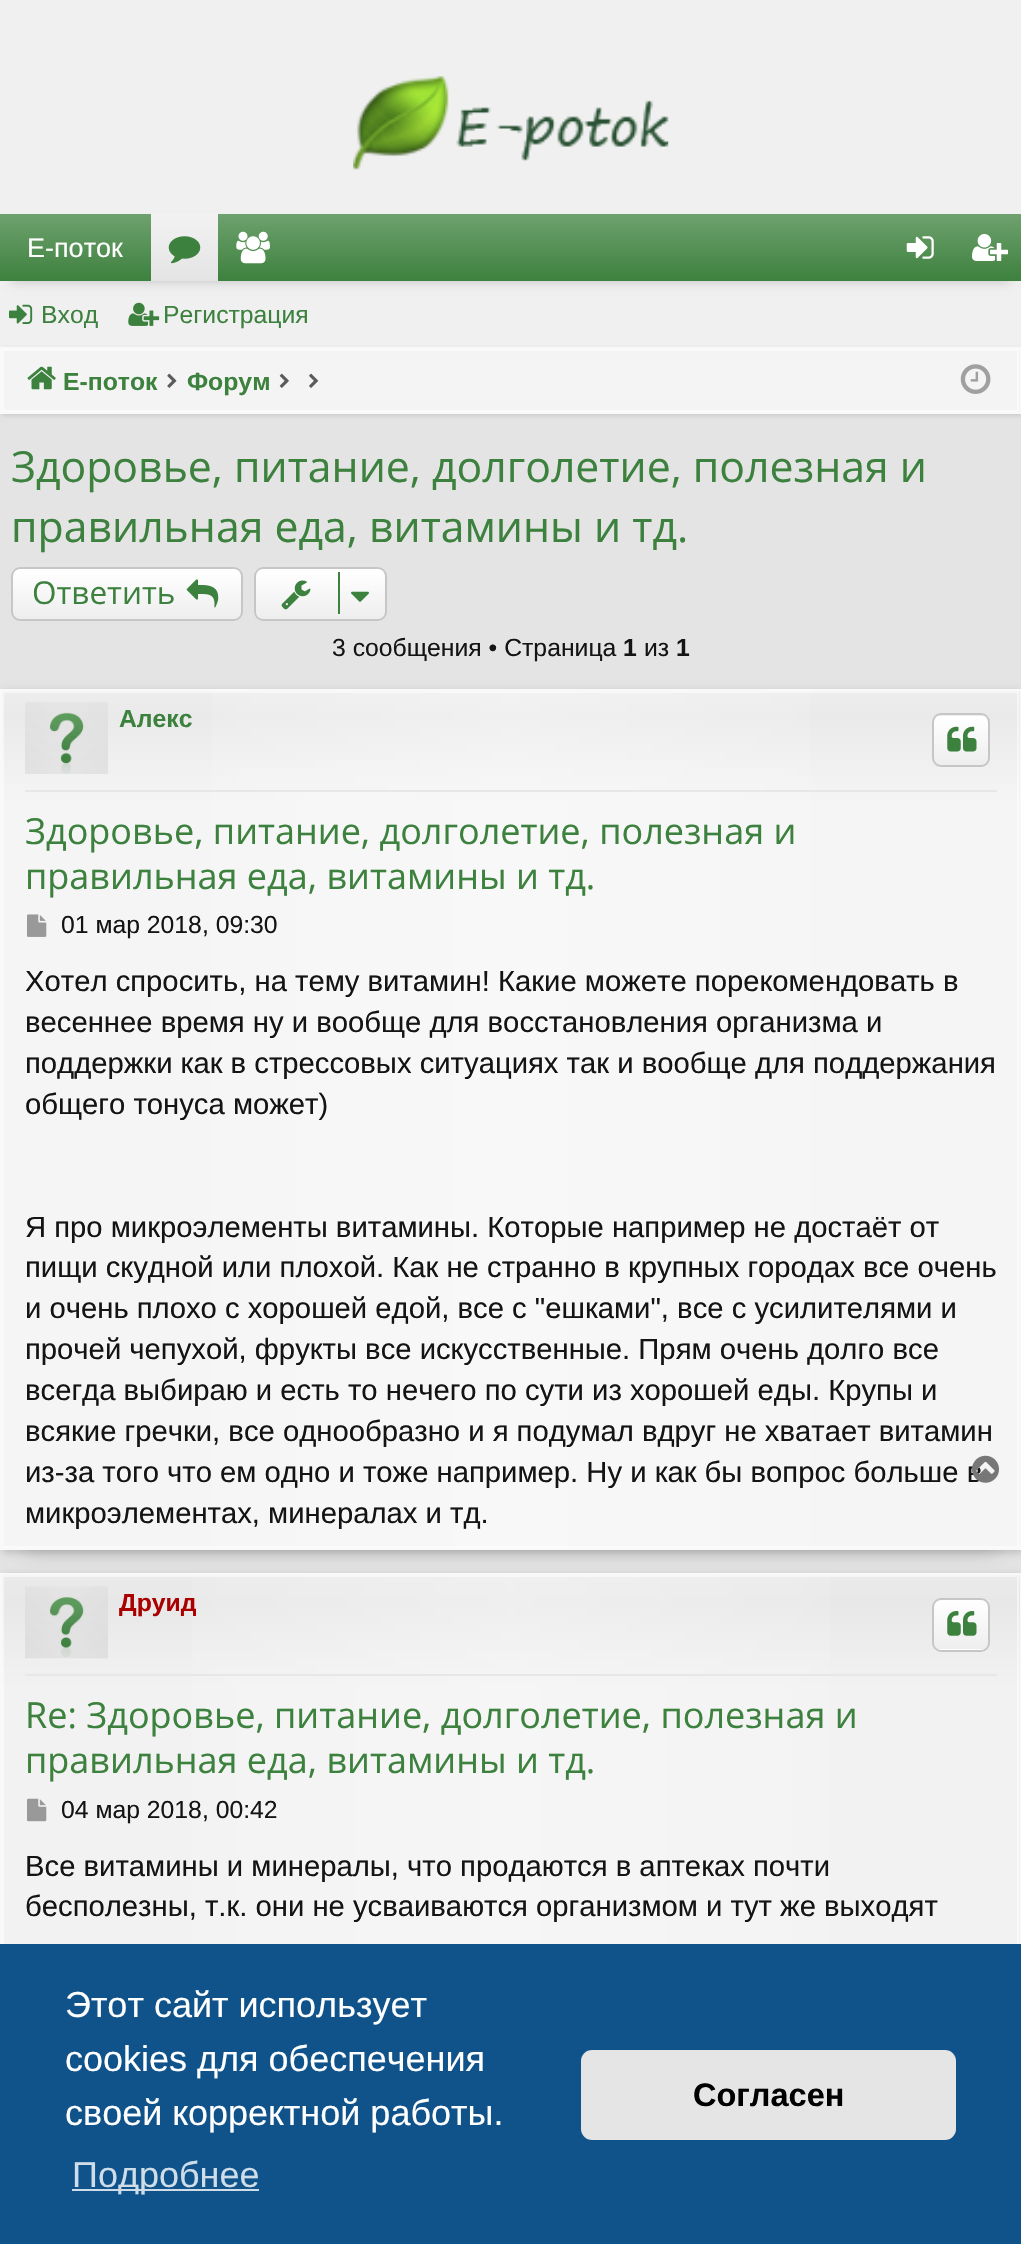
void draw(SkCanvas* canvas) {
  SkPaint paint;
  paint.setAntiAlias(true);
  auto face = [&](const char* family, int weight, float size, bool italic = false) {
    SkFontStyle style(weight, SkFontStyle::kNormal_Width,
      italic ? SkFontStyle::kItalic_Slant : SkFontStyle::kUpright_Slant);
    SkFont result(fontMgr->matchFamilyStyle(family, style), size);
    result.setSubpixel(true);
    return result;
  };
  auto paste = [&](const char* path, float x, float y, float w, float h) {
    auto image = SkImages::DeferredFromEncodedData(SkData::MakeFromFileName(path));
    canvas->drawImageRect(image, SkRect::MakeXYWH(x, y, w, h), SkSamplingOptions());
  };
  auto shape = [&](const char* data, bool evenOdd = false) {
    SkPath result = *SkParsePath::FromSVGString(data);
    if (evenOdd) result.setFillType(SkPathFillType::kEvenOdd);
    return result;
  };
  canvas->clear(0xfff0f0f0);
  paste("img/1.png", 353, 76, 316, 94);
  paint.setColor(0x33000000);
  paint.setMaskFilter(SkMaskFilter::MakeBlur(kNormal_SkBlurStyle, 5.5f));
  canvas->drawRect(SkRect::MakeXYWH(11, 236, 999, 45), paint);
  paint.setMaskFilter(nullptr);
  {
    const SkColor colors[] = {0xff6ea16e, 0xff3d813e};
    const float stops[] = {0, 1};
    const SkPoint ends[] = {{511, 214}, {511, 281}};
    paint.setShader(SkGradientShader::MakeLinear(ends, colors, stops, 2, SkTileMode::kClamp));
    paint.setAlpha(255);
  }
  canvas->drawRect(SkRect::MakeXYWH(0, 214, 1021, 67), paint);
  {
    const SkColor colors[] = {0xfff2f2f2, 0xffe4e4e4};
    const float stops[] = {0, 1};
    const SkPoint ends[] = {{185, 214}, {185, 281}};
    paint.setShader(SkGradientShader::MakeLinear(ends, colors, stops, 2, SkTileMode::kClamp));
    paint.setAlpha(255);
  }
  canvas->drawRect(SkRect::MakeXYWH(151, 214, 67, 67), paint);
  paste("img/2.png", 168, 236, 33, 28);
  paste("img/3.png", 236, 231, 34, 33);
  paste("img/4.png", 906, 236, 28, 23);
  paste("img/5.png", 972, 234, 36, 27);
  paste("img/6.png", 9, 304, 24, 20);
  paste("img/7.png", 128, 302, 32, 24);
  paint.setShader(nullptr);
  paint.setColor(0xffe4e4e4);
  canvas->drawRect(SkRect::MakeXYWH(0, 414, 1021, 1159), paint);
  paint.setColor(0x1a000000);
  paint.setMaskFilter(SkMaskFilter::MakeBlur(kNormal_SkBlurStyle, 2));
  canvas->drawRect(SkRect::MakeXYWH(2, 349, 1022, 67), paint);
  paint.setMaskFilter(nullptr);
  paint.setColor(0xfff4f4f4);
  canvas->drawRect(SkRect::MakeXYWH(4, 349, 1016, 63), paint);
  paint.setStroke(true);
  paint.setStrokeWidth(2);
  paint.setColor(0xfffafafa);
  canvas->drawRect(SkRect::MakeXYWH(3, 350, 1015, 61), paint);
  paint.setColor(0xfff9f9f9);
  canvas->drawRect(SkRect::MakeXYWH(1, 348, 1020, 65), paint);
  paste("img/8.png", 27, 366, 29, 24);
  paste("img/9.png", 167, 373, 10, 15);
  paste("img/10.png", 279, 373, 10, 15);
  paste("img/11.png", 309, 373, 10, 15);
  paste("img/12.png", 960, 364, 31, 30);
  paint.setStroke(false);
  paint.setColor(0xffeeeeee);
  canvas->drawRoundRect(SkRect::MakeXYWH(11, 567, 232, 54), 9, 9, paint);
  canvas->save();
  canvas->clipPath(shape("M20 567H234C239 567 243 571 243 576V612C243 617 239 621 234 621H20C15 621 11 617 11 612V576C11 571 15 567 20 567Z"), true);
  {
    const SkColor colors[] = {0xffffffff, 0x00ffffff};
    const float stops[] = {0, 1};
    const SkPoint ends[] = {{127, 569}, {127, 619}};
    paint.setShader(SkGradientShader::MakeLinear(ends, colors, stops, 2, SkTileMode::kClamp));
    paint.setAlpha(255);
  }
  canvas->drawRect(SkRect::MakeXYWH(11, 569, 232, 49), paint);
  canvas->restore();
  paint.setStroke(true);
  paint.setShader(nullptr);
  paint.setColor(0xffc6c6c6);
  canvas->drawRoundRect(SkRect::MakeXYWH(12, 568, 230, 52), 8, 8, paint);
  paste("img/13.png", 186, 579, 33, 29);
  paint.setStroke(false);
  paint.setColor(0xffeeeeee);
  canvas->drawRoundRect(SkRect::MakeXYWH(254, 567, 133, 54), 9, 9, paint);
  canvas->save();
  canvas->clipPath(shape("M263 567H378C383 567 387 571 387 576V612C387 617 383 621 378 621H263C258 621 254 617 254 612V576C254 571 258 567 263 567Z"), true);
  {
    const SkColor colors[] = {0xffffffff, 0x00ffffff};
    const float stops[] = {0, 1};
    const SkPoint ends[] = {{321, 569}, {321, 619}};
    paint.setShader(SkGradientShader::MakeLinear(ends, colors, stops, 2, SkTileMode::kClamp));
    paint.setAlpha(255);
  }
  canvas->drawRect(SkRect::MakeXYWH(254, 569, 133, 49), paint);
  canvas->restore();
  paint.setStroke(true);
  paint.setShader(nullptr);
  paint.setColor(0xffc6c6c6);
  canvas->drawRoundRect(SkRect::MakeXYWH(255, 568, 131, 52), 8, 8, paint);
  paste("img/14.png", 281, 580, 30, 30);
  paint.setStroke(false);
  paint.setColor(0xff3d813e);
  canvas->drawRect(SkRect::MakeXYWH(338, 572, 2, 42), paint);
  paste("img/15.png", 351, 591, 18, 11);
  paint.setColor(0x33000000);
  paint.setMaskFilter(SkMaskFilter::MakeBlur(kNormal_SkBlurStyle, 11));
  canvas->drawRect(SkRect::MakeXYWH(23, 734, 976, 816), paint);
  paint.setMaskFilter(nullptr);
  paint.setColor(0x26000000);
  paint.setMaskFilter(SkMaskFilter::MakeBlur(kNormal_SkBlurStyle, 3.5f));
  canvas->drawRect(SkRect::MakeXYWH(2, 691, 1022, 862), paint);
  paint.setMaskFilter(nullptr);
  {
    const SkColor colors[] = {0xffededed, 0xffeaeaea, 0xfff5f5f5};
    const float stops[] = {0, 0.03f, 0.13f};
    const SkPoint ends[] = {{511, 691}, {511, 1548}};
    paint.setShader(SkGradientShader::MakeLinear(ends, colors, stops, 3, SkTileMode::kClamp));
    paint.setAlpha(255);
  }
  canvas->drawRect(SkRect::MakeXYWH(2, 691, 1018, 857), paint);
  {
    const SkColor colors[] = {0x00ffffff, 0x4dffffff, 0x00ffffff};
    const float stops[] = {0, 0.5f, 1};
    const SkPoint ends[] = {{2.2f, 1119}, {1019, 1119}};
    paint.setShader(SkGradientShader::MakeLinear(ends, colors, stops, 3, SkTileMode::kClamp));
    paint.setAlpha(255);
  }
  canvas->drawRect(SkRect::MakeXYWH(212, 691, 598, 857), paint);
  paint.setStroke(true);
  paint.setShader(nullptr);
  paint.setColor(0x80ffffff);
  canvas->drawRect(SkRect::MakeXYWH(3, 692, 1015, 855), paint);
  paint.setColor(0xfff9f9f9);
  canvas->drawRect(SkRect::MakeXYWH(1, 690, 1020, 859), paint);
  paint.setStroke(false);
  paint.setColor(0xffe7e7e7);
  canvas->drawRect(SkRect::MakeXYWH(25, 790, 972, 2), paint);
  paste("img/16.png", 25, 702, 83, 72);
  paint.setColor(0xffeeeeee);
  canvas->drawRoundRect(SkRect::MakeXYWH(932, 713, 58, 54), 9, 9, paint);
  canvas->save();
  canvas->clipPath(shape("M941 713H981C986 713 990 717 990 722V758C990 763 986 767 981 767H941C936 767 932 763 932 758V722C932 717 936 713 941 713Z"), true);
  {
    const SkColor colors[] = {0xffffffff, 0x00ffffff};
    const float stops[] = {0, 1};
    const SkPoint ends[] = {{961, 716}, {961, 765}};
    paint.setShader(SkGradientShader::MakeLinear(ends, colors, stops, 2, SkTileMode::kClamp));
    paint.setAlpha(255);
  }
  canvas->drawRect(SkRect::MakeXYWH(932, 716, 58, 48), paint);
  canvas->restore();
  paint.setStroke(true);
  paint.setShader(nullptr);
  paint.setColor(0xffc6c6c6);
  canvas->drawRoundRect(SkRect::MakeXYWH(933, 714, 56, 52), 8, 8, paint);
  paste("img/17.png", 947, 726, 30, 26);
  paste("img/18.png", 27, 914, 20, 23);
  paint.setStroke(false);
  paint.setColor(0x26000000);
  paint.setMaskFilter(SkMaskFilter::MakeBlur(kNormal_SkBlurStyle, 3.5f));
  canvas->drawRect(SkRect::MakeXYWH(2, 1575, 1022, 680), paint);
  paint.setMaskFilter(nullptr);
  {
    const SkColor colors[] = {0xffeaeaea, 0xffe8e8e8, 0xfff2f2f2};
    const float stops[] = {0, 0.01f, 0.04f};
    const SkPoint ends[] = {{511, 1575}, {511, 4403}};
    paint.setShader(SkGradientShader::MakeLinear(ends, colors, stops, 3, SkTileMode::kClamp));
    paint.setAlpha(255);
  }
  canvas->drawRect(SkRect::MakeXYWH(2, 1575, 1018, 369), paint);
  {
    const SkColor colors[] = {0x00ffffff, 0x4dffffff, 0x00ffffff};
    const float stops[] = {0, 0.5f, 1};
    const SkPoint ends[] = {{2.2f, 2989}, {1019, 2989}};
    paint.setShader(SkGradientShader::MakeLinear(ends, colors, stops, 3, SkTileMode::kClamp));
    paint.setAlpha(255);
  }
  canvas->drawRect(SkRect::MakeXYWH(192, 1575, 638, 369), paint);
  paint.setStroke(true);
  paint.setShader(nullptr);
  paint.setColor(0x80ffffff);
  canvas->drawRect(SkRect::MakeXYWH(3, 1576, 1015, 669), paint);
  paint.setColor(0xfff9f9f9);
  canvas->drawRect(SkRect::MakeXYWH(1, 1574, 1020, 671), paint);
  paint.setStroke(false);
  paint.setColor(0xffe7e7e7);
  canvas->drawRect(SkRect::MakeXYWH(25, 1674, 972, 2), paint);
  paste("img/20.png", 25, 1586, 83, 73);
  canvas->save();
  canvas->clipPath(shape("M941 1598H981C986 1598 990 1602 990 1607V1643C990 1648 986 1652 981 1652H941C936 1652 932 1648 932 1643V1607C932 1602 936 1598 941 1598Z"), true);
  {
    const SkColor colors[] = {0xffffffff, 0xffeeeeee};
    const float stops[] = {0, 1};
    const SkPoint ends[] = {{961, 1600}, {961, 1649}};
    paint.setShader(SkGradientShader::MakeLinear(ends, colors, stops, 2, SkTileMode::kClamp));
    paint.setAlpha(255);
  }
  canvas->drawRect(SkRect::MakeXYWH(932, 1600, 58, 49), paint);
  {
    const SkColor colors[] = {0xffffffff, 0xffeeeeee};
    const float stops[] = {0, 1};
    const SkPoint ends[] = {{961, 1649}, {961, 1699}};
    paint.setShader(SkGradientShader::MakeLinear(ends, colors, stops, 2, SkTileMode::kClamp));
    paint.setAlpha(255);
  }
  canvas->drawRect(SkRect::MakeXYWH(932, 1649, 58, 3), paint);
  canvas->restore();
  paint.setStroke(true);
  paint.setShader(nullptr);
  paint.setColor(0xffc6c6c6);
  canvas->drawRoundRect(SkRect::MakeXYWH(933, 1599, 56, 52), 8, 8, paint);
  paste("img/21.png", 947, 1611, 30, 25);
  paste("img/22.png", 27, 1798, 20, 24);
  paint.setStroke(false);
  paint.setColor(0xff0f538a);
  canvas->drawRect(SkRect::MakeXYWH(0, 1944, 1021, 300), paint);
  paint.setColor(0xffcfdde8);
  canvas->drawRect(SkRect::MakeXYWH(72, 2189, 187, 2), paint);
  paint.setColor(0xffe5e5e5);
  canvas->drawRoundRect(SkRect::MakeXYWH(581, 2050, 375, 90), 11, 11, paint);
  auto f0 = face("Liberation Sans", 400, 27);
  paint.setColor(0xffffffff);
  canvas->drawString("Е-поток", 27, 257, f0, paint);
  auto f1 = face("Liberation Sans", 400, 24.75f);
  paint.setColor(0xff3d813e);
  canvas->drawString("Вход", 41, 323, f1, paint);
  canvas->drawString("Регистрация", 163, 323, f1, paint);
  auto f2 = face("Liberation Sans", 700, 24.75f);
  canvas->drawString("Е-поток", 63, 390, f2, paint);
  canvas->drawString("Форум", 187, 390, f2, paint);
  auto f3 = face("Open Sans", 400, 42.75f);
  canvas->drawString("Здоровье, питание, долголетие, полезная и", 11, 482, f3, paint);
  canvas->drawString("правильная еда, витамины и тд.", 11, 542, f3, paint);
  auto f4 = face("Open Sans", 400, 31.5f);
  canvas->drawString("Ответить", 32, 604, f4, paint);
  paint.setColor(0xff141414);
  canvas->drawString("3 сообщения • Страница", 332, 656, f1, paint);
  canvas->drawString("1", 623, 656, f2, paint);
  canvas->drawString("из", 644, 656, f1, paint);
  canvas->drawString("1", 676, 656, f2, paint);
  paint.setColor(0xff3d813e);
  canvas->drawString("Алекс", 119, 727, f2, paint);
  auto f5 = face("Open Sans", 400, 36);
  canvas->drawString("Здоровье, питание, долголетие, полезная и", 25, 844, f5, paint);
  canvas->drawString("правильная еда, витамины и тд.", 25, 889, f5, paint);
  paint.setColor(0xff141414);
  canvas->drawString("01 мар 2018, 09:30", 61, 933, f1, paint);
  auto f6 = face("Liberation Sans", 400, 29.25f);
  {
    const struct { const char* s; float x, y; } items[] = {
      {"Хотел спросить, на тему витамин! Какие можете порекомендовать в", 25, 991},
      {"весеннее время ну и вообще для восстановления организма и", 25, 1032},
      {"поддержки как в стрессовых ситуациях так и вообще для поддержания", 25, 1073},
      {"общего тонуса может)", 25, 1114},
      {"Я про микроэлементы витамины. Которые например не достаёт от", 25, 1237},
      {"пищи скудной или плохой. Как не странно в крупных городах все очень", 25, 1277},
      {"и очень плохо с хорошей едой, все с \"ешками\", все с усилителями и", 25, 1318},
      {"прочей чепухой, фрукты все искусственные. Прям очень долго все", 25, 1359},
      {"всегда выбираю и есть то нечего по сути из хорошей еды. Крупы и", 25, 1400},
      {"всякие гречки, все однообразно и я подумал вдруг не хватает витамин", 25, 1441},
      {"из-за того что ем одно и тоже например. Ну и как бы вопрос больше в", 25, 1482},
      {"микроэлементах, минералах и тд.", 25, 1523},
    };
    for (auto [s, x, y] : items) {
      canvas->drawString(s, x, y, f6, paint);
    }
  }
  paste("img/19.png", 972, 1455, 27, 28);
  paint.setColor(0xffaa0000);
  canvas->drawString("Друид", 119, 1611, f2, paint);
  paint.setColor(0xff3d813e);
  canvas->drawString("Re: Здоровье, питание, долголетие, полезная и", 25, 1728, f5, paint);
  canvas->drawString("правильная еда, витамины и тд.", 25, 1773, f5, paint);
  paint.setColor(0xff141414);
  canvas->drawString("04 мар 2018, 00:42", 61, 1818, f1, paint);
  canvas->drawString("Все витамины и минералы, что продаются в аптеках почти", 25, 1876, f6, paint);
  canvas->drawString("бесполезны, т.к. они не усваиваются организмом и тут же выходят", 25, 1916, f6, paint);
  auto f7 = face("Liberation Sans", 400, 36);
  paint.setColor(0xffffffff);
  {
    const struct { const char* s; float x, y; } items[] = {
      {"Этот сайт использует", 65, 2017},
      {"cookies для обеспечения", 65, 2071},
      {"своей корректной работы.", 65, 2125},
    };
    for (auto [s, x, y] : items) {
      canvas->drawString(s, x, y, f7, paint);
    }
  }
  paint.setColor(0xffcfdde8);
  canvas->drawString("Подробнее", 72, 2187, f7, paint);
  auto f8 = face("Liberation Sans", 700, 32.5f);
  paint.setColor(0xff000000);
  canvas->drawString("Согласен", 693, 2106, f8, paint);
}
